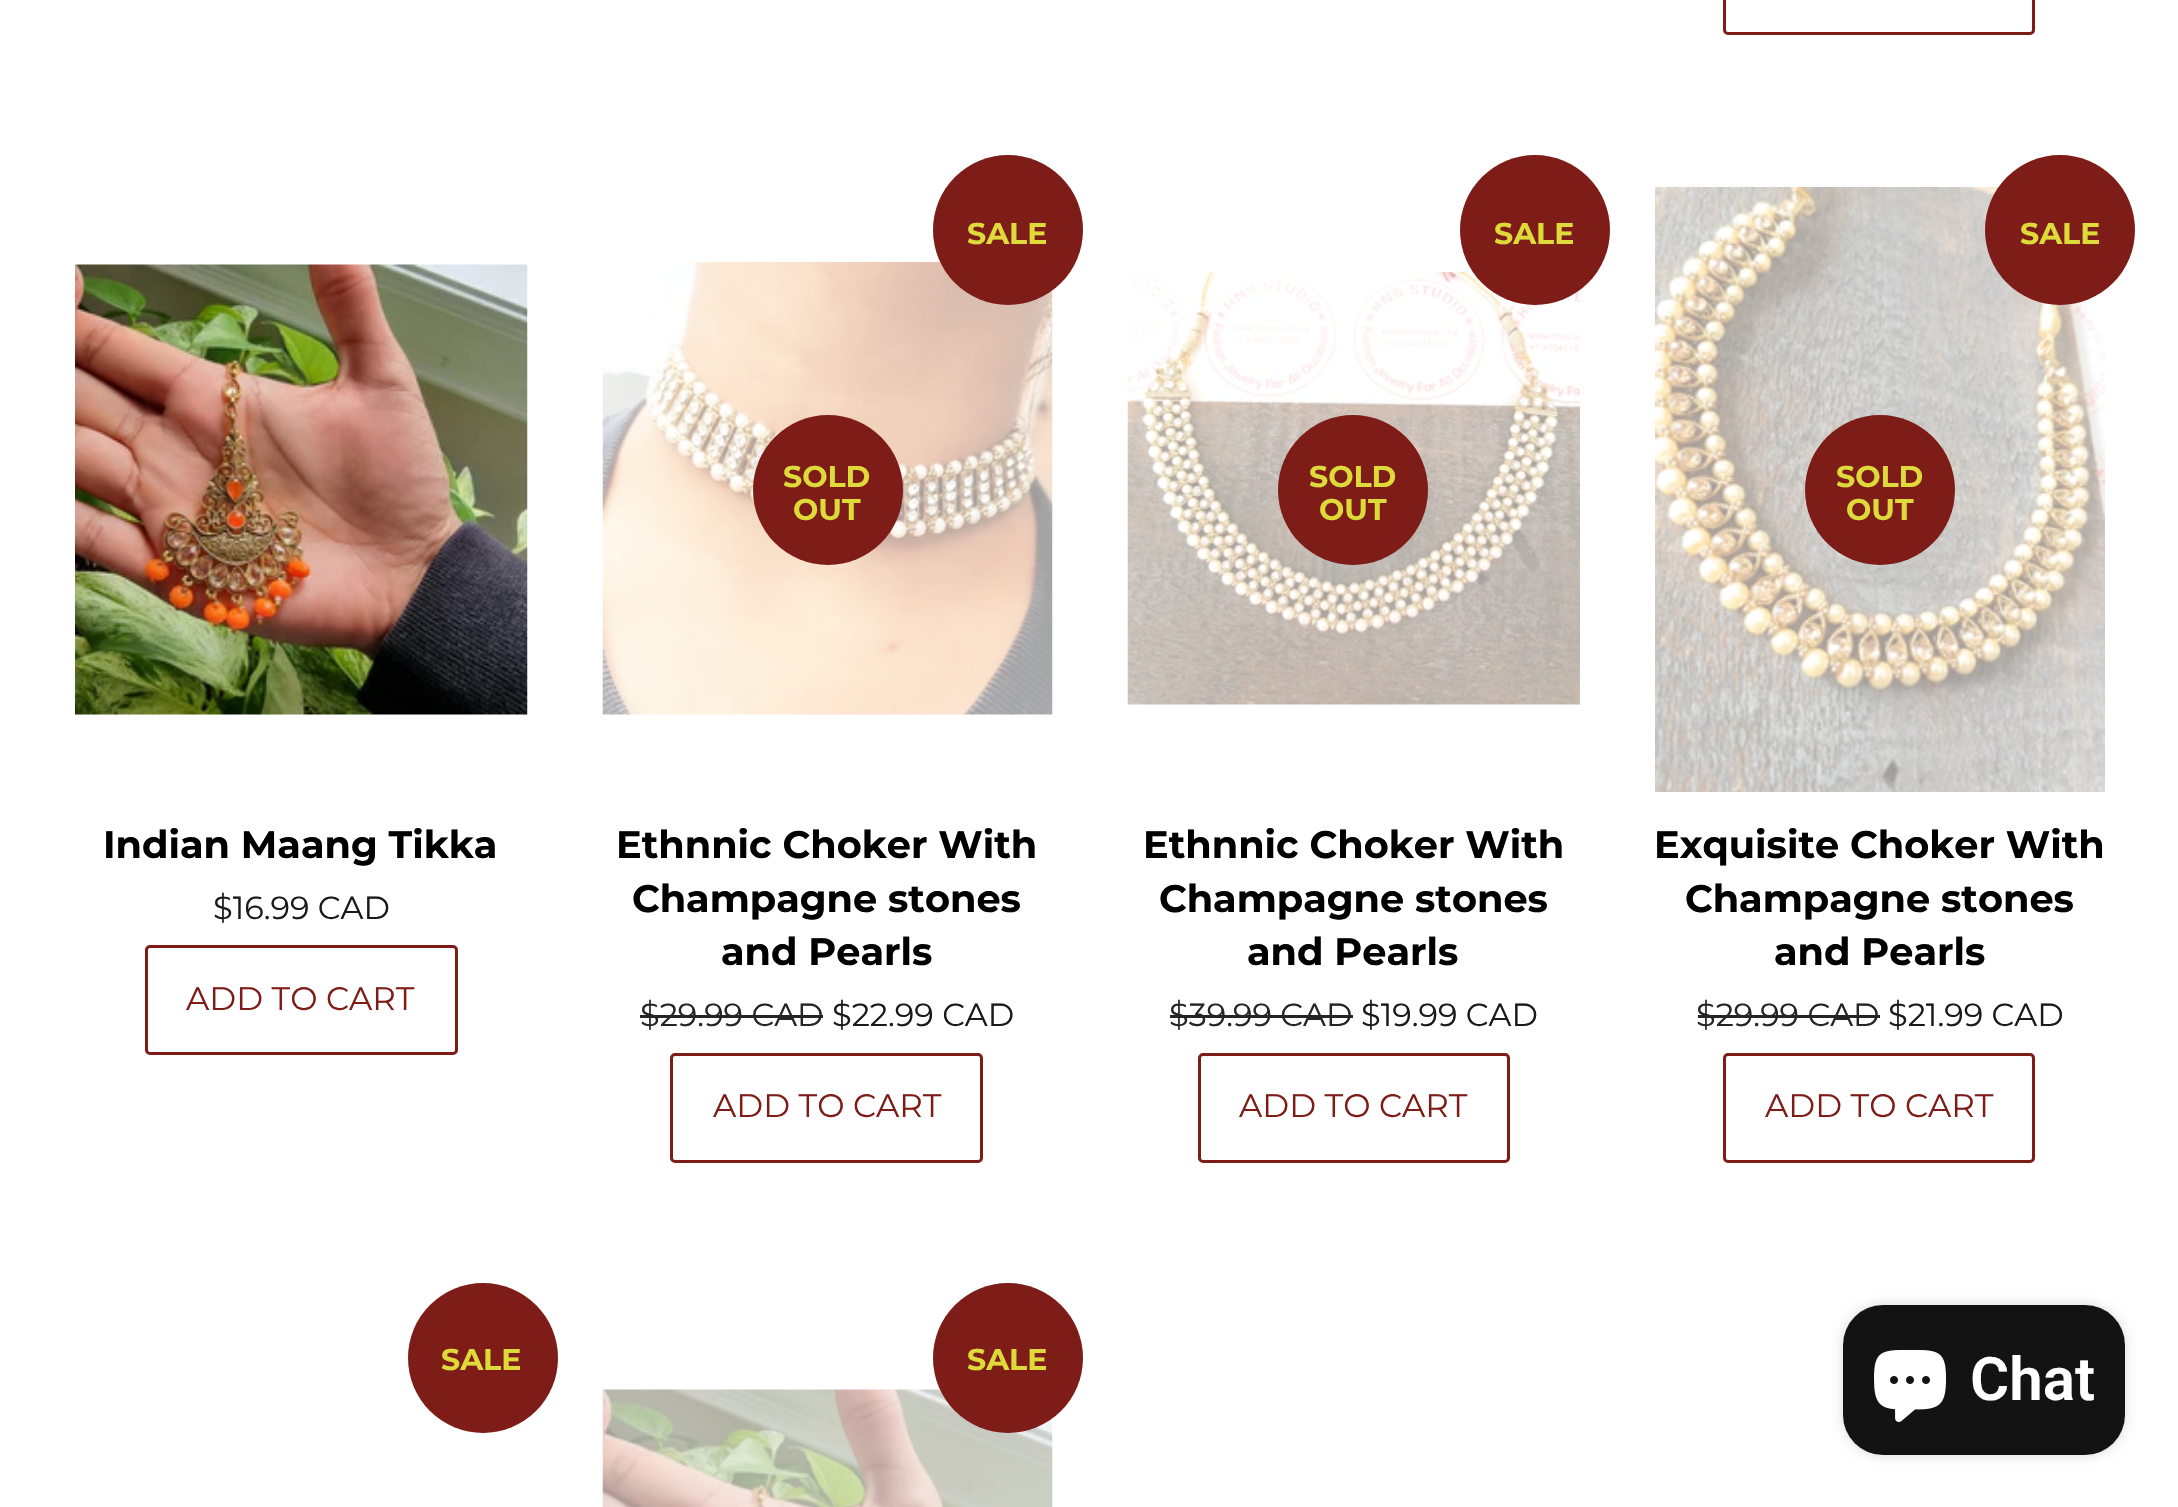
void draw(SkCanvas* canvas) {
  SkPaint paint;
  paint.setAntiAlias(true);
  auto face = [&](const char* family, int weight, float size, bool italic = false) {
    SkFontStyle style(weight, SkFontStyle::kNormal_Width,
      italic ? SkFontStyle::kItalic_Slant : SkFontStyle::kUpright_Slant);
    SkFont result(fontMgr->matchFamilyStyle(family, style), size);
    result.setSubpixel(true);
    return result;
  };
  auto paste = [&](const char* path, float x, float y, float w, float h) {
    auto image = SkImages::DeferredFromEncodedData(SkData::MakeFromFileName(path));
    canvas->drawImageRect(image, SkRect::MakeXYWH(x, y, w, h), SkSamplingOptions());
  };
  canvas->clear(0xffffffff);
  paint.setStroke(true);
  paint.setStrokeWidth(3);
  paint.setColor(0xff7e1c18);
  canvas->drawRoundRect(SkRect::MakeXYWH(1724.5f, -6.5f, 309, 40), 3.5f, 3.5f, paint);
  paste("img/1.png", 75, 264, 453, 451);
  canvas->drawRoundRect(SkRect::MakeXYWH(146.5f, 946.5f, 310, 107), 3.5f, 3.5f, paint);
  paste("img/2.png", 602, 262, 451, 453);
  paint.setStroke(false);
  canvas->drawCircle(1008, 230, 75, paint);
  canvas->drawCircle(828, 490, 75, paint);
  paint.setColor(0xff252525);
  canvas->drawRect(SkRect::MakeXYWH(640, 1015, 183, 3), paint);
  paint.setStroke(true);
  paint.setColor(0xff7e1c18);
  canvas->drawRoundRect(SkRect::MakeXYWH(671.5f, 1054.5f, 310, 107), 3.5f, 3.5f, paint);
  paste("img/3.png", 1127, 272, 453, 433);
  paint.setStroke(false);
  canvas->drawCircle(1535, 230, 75, paint);
  canvas->drawCircle(1353, 490, 75, paint);
  paint.setColor(0xff252525);
  canvas->drawRect(SkRect::MakeXYWH(1170, 1015, 183, 3), paint);
  paint.setStroke(true);
  paint.setColor(0xff7e1c18);
  canvas->drawRoundRect(SkRect::MakeXYWH(1199.5f, 1054.5f, 309, 107), 3.5f, 3.5f, paint);
  paste("img/4.png", 1655, 187, 450, 605);
  paint.setStroke(false);
  canvas->drawCircle(2060, 230, 75, paint);
  canvas->drawCircle(1880, 490, 75, paint);
  paint.setColor(0xff252525);
  canvas->drawRect(SkRect::MakeXYWH(1698, 1015, 182, 3), paint);
  paint.setStroke(true);
  paint.setColor(0xff7e1c18);
  canvas->drawRoundRect(SkRect::MakeXYWH(1724.5f, 1054.5f, 309, 107), 3.5f, 3.5f, paint);
  paint.setStroke(false);
  canvas->drawCircle(483, 1358, 75, paint);
  paste("img/5.png", 602, 1389, 451, 118);
  canvas->drawCircle(1008, 1358, 75, paint);
  paint.setColor(0x26000000);
  paint.setMaskFilter(SkMaskFilter::MakeBlur(kNormal_SkBlurStyle, 6));
  canvas->drawRoundRect(SkRect::MakeXYWH(1843, 1305, 282, 150), 40, 40, paint);
  paint.setMaskFilter(nullptr);
  paint.setColor(0xff141313);
  canvas->drawRoundRect(SkRect::MakeXYWH(1843, 1305, 282, 150), 40, 40, paint);
  paste("img/6.png", 1874, 1350, 72, 72);
  auto f0 = face("Montserrat", 700, 38.25f);
  paint.setColor(0xff000000);
  canvas->drawString("Indian Maang Tikka", 103, 858, f0, paint);
  auto f1 = face("Montserrat", 400, 32);
  paint.setColor(0xff1a1a1a);
  canvas->drawString("$16.99 CAD", 213, 919, f1, paint);
  auto f2 = face("Montserrat", 400, 32.5f);
  paint.setColor(0xff7e1c18);
  canvas->drawString("ADD TO CART", 186, 1010, f2, paint);
  auto f3 = face("Montserrat", 700, 30);
  paint.setColor(0xffdeda39);
  {
    const struct { const char* s; float x, y; } items[] = {
      {"SALE", 967, 244},
      {"SOLD", 783, 487},
      {"OUT", 793, 520},
    };
    for (auto [s, x, y] : items) {
      canvas->drawString(s, x, y, f3, paint);
    }
  }
  paint.setColor(0xff000000);
  {
    const struct { const char* s; float x, y; } items[] = {
      {"Ethnnic Choker With", 616, 858},
      {"Champagne stones", 632, 912},
      {"and Pearls", 721, 965},
    };
    for (auto [s, x, y] : items) {
      canvas->drawString(s, x, y, f0, paint);
    }
  }
  paint.setColor(0xff252525);
  canvas->drawString("$29.99 CAD", 640, 1026, f1, paint);
  paint.setColor(0xff1a1a1a);
  canvas->drawString("$22.99 CAD", 832, 1026, f1, paint);
  paint.setColor(0xff7e1c18);
  canvas->drawString("ADD TO CART", 713, 1117, f2, paint);
  paint.setColor(0xffdeda39);
  {
    const struct { const char* s; float x, y; } items[] = {
      {"SALE", 1494, 244},
      {"SOLD", 1309, 487},
      {"OUT", 1319, 520},
    };
    for (auto [s, x, y] : items) {
      canvas->drawString(s, x, y, f3, paint);
    }
  }
  paint.setColor(0xff000000);
  {
    const struct { const char* s; float x, y; } items[] = {
      {"Ethnnic Choker With", 1143, 858},
      {"Champagne stones", 1159, 912},
      {"and Pearls", 1247, 965},
    };
    for (auto [s, x, y] : items) {
      canvas->drawString(s, x, y, f0, paint);
    }
  }
  paint.setColor(0xff252525);
  canvas->drawString("$39.99 CAD", 1169, 1026, f1, paint);
  paint.setColor(0xff1a1a1a);
  canvas->drawString("$19.99 CAD", 1361, 1026, f1, paint);
  paint.setColor(0xff7e1c18);
  canvas->drawString("ADD TO CART", 1239, 1117, f2, paint);
  paint.setColor(0xffdeda39);
  {
    const struct { const char* s; float x, y; } items[] = {
      {"SALE", 2020, 244},
      {"SOLD", 1836, 487},
      {"OUT", 1846, 520},
    };
    for (auto [s, x, y] : items) {
      canvas->drawString(s, x, y, f3, paint);
    }
  }
  paint.setColor(0xff000000);
  {
    const struct { const char* s; float x, y; } items[] = {
      {"Exquisite Choker With", 1654, 858},
      {"Champagne stones", 1685, 912},
      {"and Pearls", 1774, 965},
    };
    for (auto [s, x, y] : items) {
      canvas->drawString(s, x, y, f0, paint);
    }
  }
  paint.setColor(0xff252525);
  canvas->drawString("$29.99 CAD", 1696, 1026, f1, paint);
  paint.setColor(0xff1a1a1a);
  canvas->drawString("$21.99 CAD", 1888, 1026, f1, paint);
  paint.setColor(0xff7e1c18);
  canvas->drawString("ADD TO CART", 1765, 1117, f2, paint);
  paint.setColor(0xffdeda39);
  canvas->drawString("SALE", 441, 1370, f3, paint);
  canvas->drawString("SALE", 967, 1370, f3, paint);
  auto f4 = face("Roboto", 600, 60);
  paint.setColor(0xffffffff);
  canvas->drawString("Chat", 1970, 1400, f4, paint);
}
